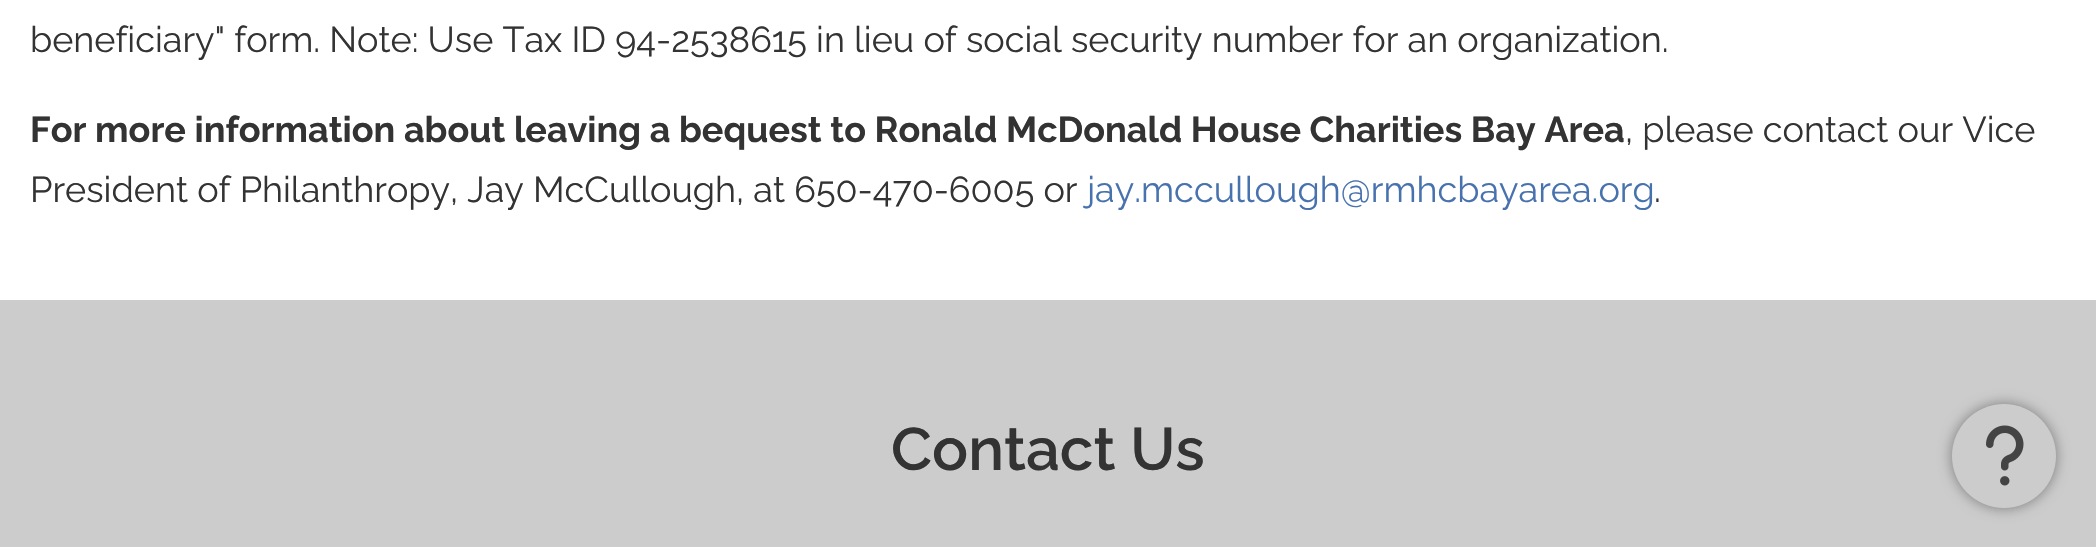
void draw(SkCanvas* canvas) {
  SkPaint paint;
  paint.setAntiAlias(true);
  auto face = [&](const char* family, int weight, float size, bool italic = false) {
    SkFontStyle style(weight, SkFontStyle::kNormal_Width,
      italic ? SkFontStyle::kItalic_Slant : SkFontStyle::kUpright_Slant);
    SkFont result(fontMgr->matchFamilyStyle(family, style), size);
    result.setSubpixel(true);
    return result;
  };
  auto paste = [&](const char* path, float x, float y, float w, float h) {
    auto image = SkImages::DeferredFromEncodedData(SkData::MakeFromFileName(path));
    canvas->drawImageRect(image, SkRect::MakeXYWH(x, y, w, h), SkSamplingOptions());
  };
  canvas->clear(0xffffffff);
  paint.setColor(0xffcccccc);
  canvas->drawRect(SkRect::MakeXYWH(0, 300, 2096, 247), paint);
  paint.setColor(0x66000000);
  paint.setMaskFilter(SkMaskFilter::MakeBlur(kNormal_SkBlurStyle, 7));
  canvas->drawRoundRect(SkRect::MakeXYWH(1952, 404, 104, 104), 52, 52, paint);
  paint.setMaskFilter(nullptr);
  paint.setColor(0xffcccccc);
  canvas->drawCircle(2004, 456, 52, paint);
  paste("img/1.png", 1986, 425, 38, 61);
  auto f0 = face("Raleway", 400, 36);
  paint.setColor(0xff333333);
  canvas->drawString("beneficiary\" form. Note: Use Tax ID 94-2538615 in lieu of social security number for an organization.", 30, 52, f0, paint);
  auto f1 = face("Raleway", 700, 36);
  canvas->drawString("For more information about leaving a bequest to Ronald McDonald House Charities Bay Area", 30, 142, f1, paint);
  canvas->drawString(", please contact our Vice", 1625, 142, f0, paint);
  canvas->drawString("President of Philanthropy, Jay McCullough, at 650-470-6005 or", 30, 202, f0, paint);
  paint.setColor(0xff4872ae);
  canvas->drawString("jay.mccullough@rmhcbayarea.org", 1087, 202, f0, paint);
  paint.setColor(0xff333333);
  canvas->drawString(".", 1654, 202, f0, paint);
  auto f2 = face("Raleway", 600, 60);
  canvas->drawString("Contact Us", 891, 470, f2, paint);
}
